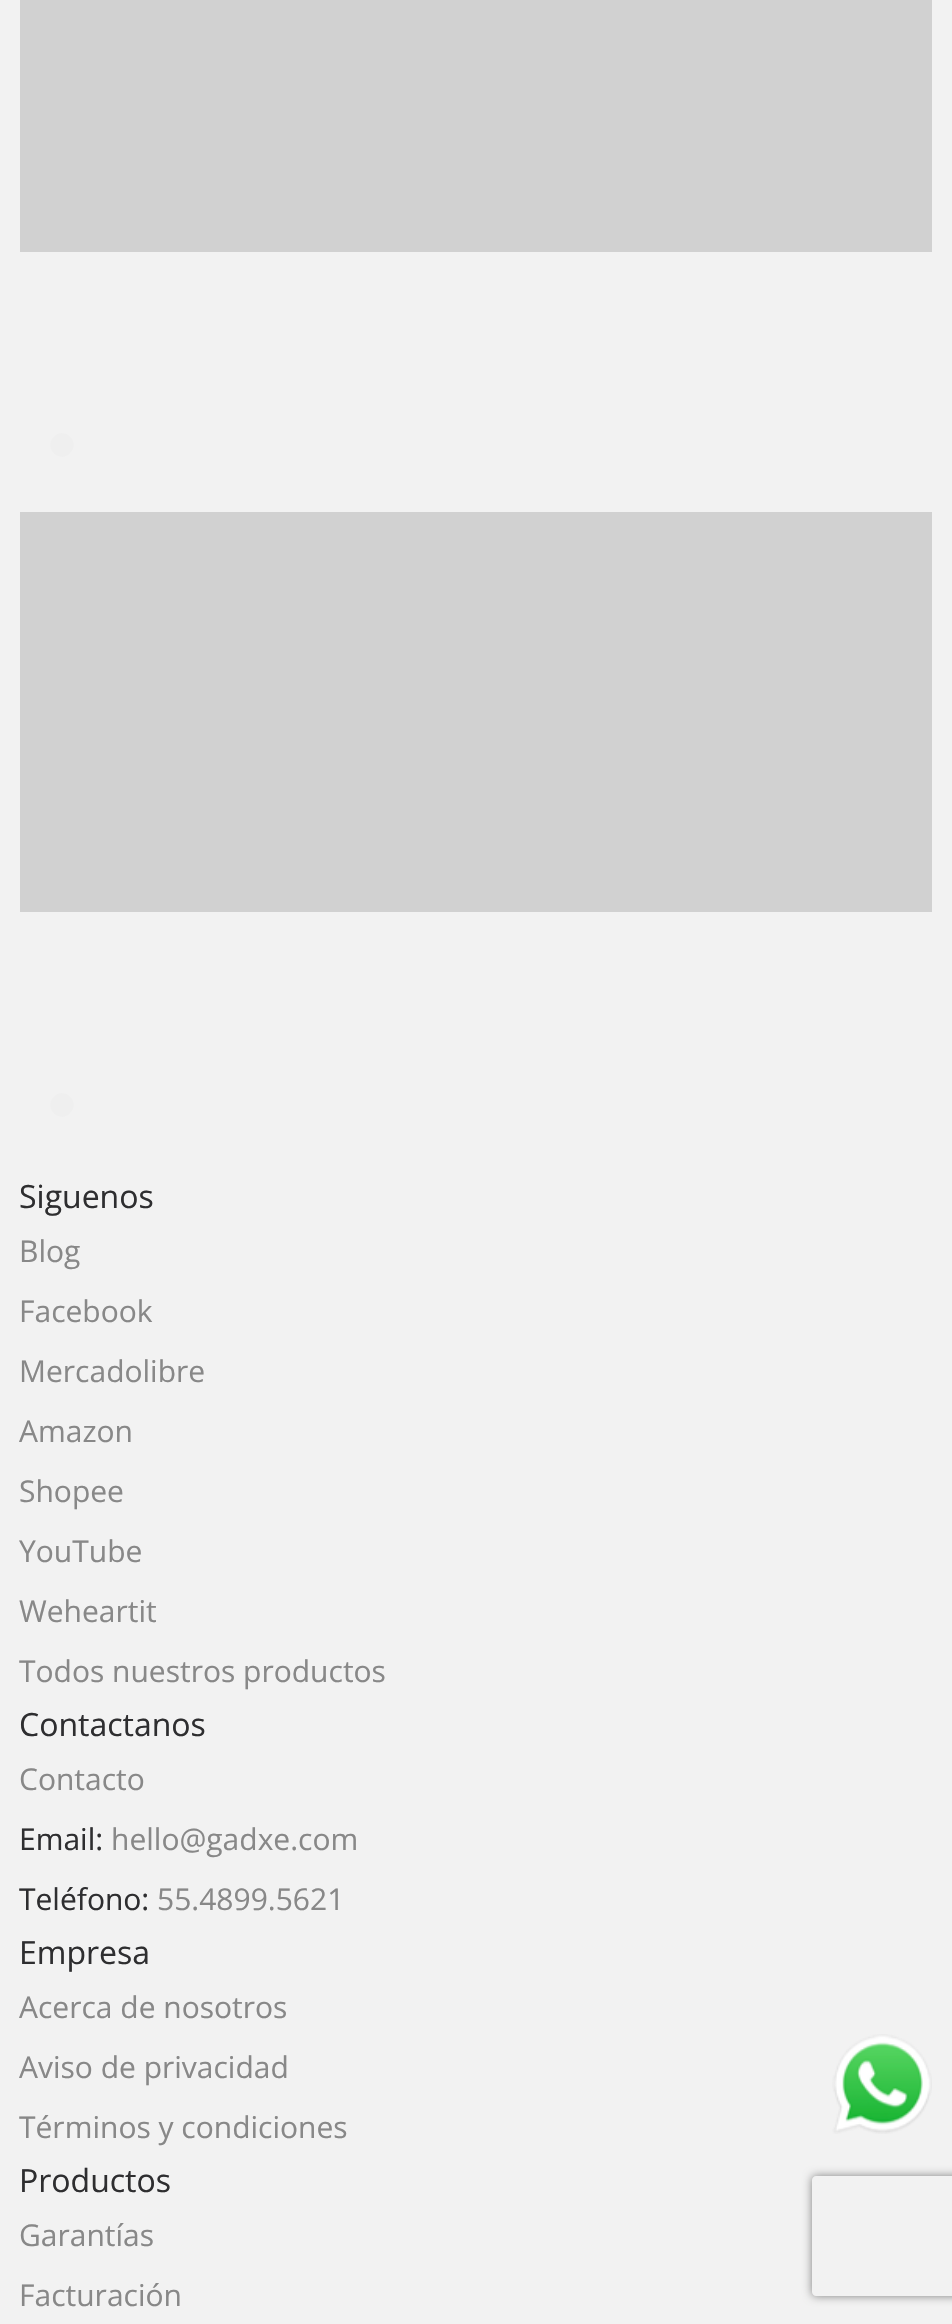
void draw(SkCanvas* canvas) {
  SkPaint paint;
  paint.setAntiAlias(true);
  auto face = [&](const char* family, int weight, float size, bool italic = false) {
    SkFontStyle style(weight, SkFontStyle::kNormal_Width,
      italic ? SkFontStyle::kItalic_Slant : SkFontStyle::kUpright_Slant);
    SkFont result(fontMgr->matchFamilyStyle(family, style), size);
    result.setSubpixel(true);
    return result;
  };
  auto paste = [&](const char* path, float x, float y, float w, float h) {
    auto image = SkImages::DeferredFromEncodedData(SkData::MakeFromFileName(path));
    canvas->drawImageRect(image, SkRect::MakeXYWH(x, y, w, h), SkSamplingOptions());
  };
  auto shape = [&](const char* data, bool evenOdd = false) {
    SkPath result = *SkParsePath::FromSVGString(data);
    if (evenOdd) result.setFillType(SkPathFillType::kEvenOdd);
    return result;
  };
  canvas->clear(0xfff2f2f2);
  paint.setColor(0xffd1d1d1);
  canvas->drawRect(SkRect::MakeXYWH(20, 0, 912, 252), paint);
  paint.setColor(0xffefefef);
  canvas->drawPath(shape("M54 437C64.5 426 81 442.5 70 453C59.5 464 43 447.5 54 437Z"), paint);
  paint.setColor(0xffd1d1d1);
  canvas->drawRect(SkRect::MakeXYWH(20, 512, 912, 400), paint);
  paint.setColor(0xffefefef);
  canvas->drawPath(shape("M54 1097C64.5 1086 81 1102.5 70 1113C59.5 1124 43 1107.5 54 1097Z"), paint);
  paste("img/1.png", 832, 2034, 100, 100);
  canvas->save();
  canvas->clipPath(shape("M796 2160H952V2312H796ZM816 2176H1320C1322 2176 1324 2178 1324 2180V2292C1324 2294 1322 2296 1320 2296H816C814 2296 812 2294 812 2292V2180C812 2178 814 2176 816 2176Z", true), true);
  paint.setColor(0xff808080);
  paint.setMaskFilter(SkMaskFilter::MakeBlur(kNormal_SkBlurStyle, 5));
  canvas->drawRoundRect(SkRect::MakeXYWH(812, 2176, 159, 120), 4, 4, paint);
  paint.setMaskFilter(nullptr);
  canvas->restore();
  auto f0 = face("Open Sans", 400, 32);
  paint.setColor(0xff2e2e30);
  canvas->drawString("Siguenos", 19, 1208, f0, paint);
  auto f1 = face("Open Sans", 400, 30);
  paint.setColor(0xff888888);
  {
    const struct { const char* s; float x, y; } items[] = {
      {"Blog", 19, 1262},
      {"Facebook", 19, 1322},
      {"Mercadolibre", 19, 1382},
      {"Amazon", 19, 1442},
      {"Shopee", 19, 1502},
      {"YouTube", 19, 1562},
      {"Weheartit", 19, 1622},
      {"Todos nuestros productos", 19, 1682},
    };
    for (auto [s, x, y] : items) {
      canvas->drawString(s, x, y, f1, paint);
    }
  }
  paint.setColor(0xff2e2e30);
  canvas->drawString("Contactanos", 19, 1736, f0, paint);
  paint.setColor(0xff888888);
  canvas->drawString("Contacto", 19, 1790, f1, paint);
  paint.setColor(0xff2e2e30);
  canvas->drawString("Email:", 19, 1850, f1, paint);
  paint.setColor(0xff888888);
  canvas->drawString("hello@gadxe.com", 111, 1850, f1, paint);
  paint.setColor(0xff2e2e30);
  canvas->drawString("Teléfono:", 19, 1910, f1, paint);
  paint.setColor(0xff888888);
  canvas->drawString("55.4899.5621", 157, 1910, f1, paint);
  paint.setColor(0xff2e2e30);
  canvas->drawString("Empresa", 19, 1964, f0, paint);
  paint.setColor(0xff888888);
  {
    const struct { const char* s; float x, y; } items[] = {
      {"Acerca de nosotros", 19, 2018},
      {"Aviso de privacidad", 19, 2078},
      {"Términos y condiciones", 19, 2138},
    };
    for (auto [s, x, y] : items) {
      canvas->drawString(s, x, y, f1, paint);
    }
  }
  paint.setColor(0xff2e2e30);
  canvas->drawString("Productos", 19, 2192, f0, paint);
  paint.setColor(0xff888888);
  canvas->drawString("Garantías", 19, 2246, f1, paint);
  canvas->drawString("Facturación", 19, 2306, f1, paint);
}
